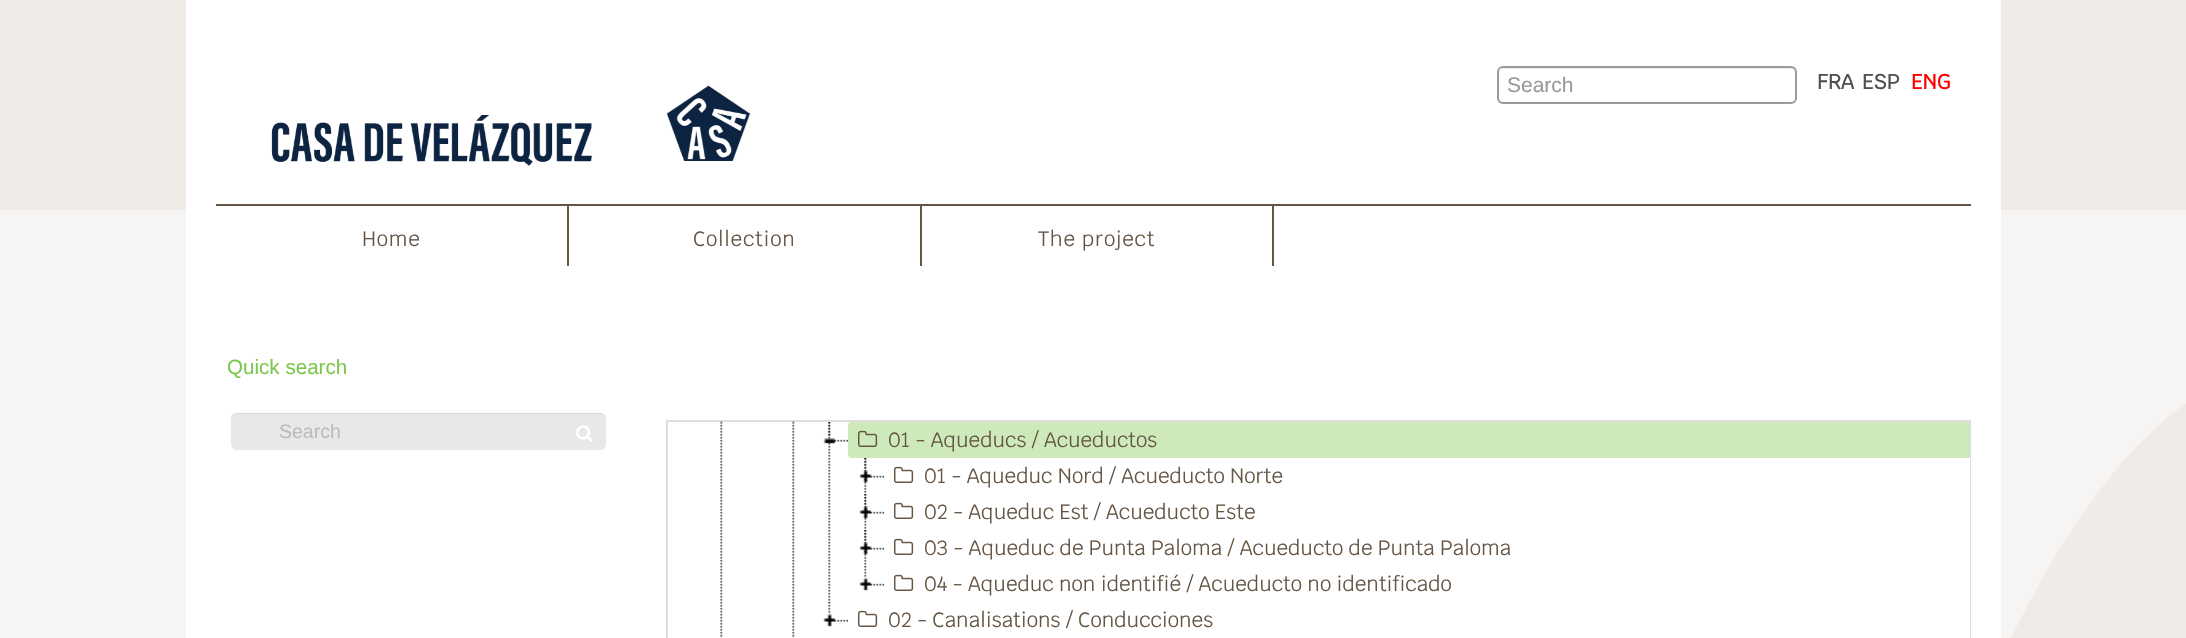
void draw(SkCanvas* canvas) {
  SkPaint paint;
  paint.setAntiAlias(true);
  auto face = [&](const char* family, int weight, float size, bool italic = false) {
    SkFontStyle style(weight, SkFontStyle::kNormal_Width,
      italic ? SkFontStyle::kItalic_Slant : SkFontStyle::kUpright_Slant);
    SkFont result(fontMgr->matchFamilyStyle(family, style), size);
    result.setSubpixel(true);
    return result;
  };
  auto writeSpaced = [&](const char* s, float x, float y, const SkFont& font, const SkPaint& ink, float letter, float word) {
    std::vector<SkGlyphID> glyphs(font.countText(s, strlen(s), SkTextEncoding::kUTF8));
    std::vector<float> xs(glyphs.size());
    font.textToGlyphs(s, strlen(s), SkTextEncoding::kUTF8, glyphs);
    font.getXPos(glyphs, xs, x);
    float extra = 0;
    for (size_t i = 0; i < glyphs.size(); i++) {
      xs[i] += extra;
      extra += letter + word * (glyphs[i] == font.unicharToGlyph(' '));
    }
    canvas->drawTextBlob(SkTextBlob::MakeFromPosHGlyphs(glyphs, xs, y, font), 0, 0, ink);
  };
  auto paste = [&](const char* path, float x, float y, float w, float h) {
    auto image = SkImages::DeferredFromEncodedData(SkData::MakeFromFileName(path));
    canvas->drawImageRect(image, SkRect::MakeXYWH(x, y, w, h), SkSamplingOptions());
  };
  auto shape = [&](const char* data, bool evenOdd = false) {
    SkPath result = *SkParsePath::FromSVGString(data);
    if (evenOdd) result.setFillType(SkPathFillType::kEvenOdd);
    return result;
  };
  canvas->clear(0xffefebe7);
  paste("img/2.png", 0, 210, 2186, 428);
  paint.setColor(0xffffffff);
  canvas->drawRect(SkRect::MakeXYWH(186, 0, 1815, 638), paint);
  paste("img/1.png", 271, 85, 480, 81);
  paint.setColor(0xffececec);
  canvas->drawPath(shape("M1503 69H1792L1795 71L1796 74C1796 71 1794 68 1791 68H1504L1502 69L1500 70Z"), paint);
  paint.setStroke(true);
  paint.setStrokeWidth(2);
  paint.setColor(0xff9a9a9a);
  canvas->drawRoundRect(SkRect::MakeXYWH(1498, 67, 298, 36), 5, 5, paint);
  paint.setStroke(false);
  {
    const struct { float x, y, w, h; SkColor color; } items[] = {
      {216, 204, 1755, 2, 0xff655544},
      {567, 206, 2, 60, 0xff655544},
      {920, 206, 2, 60, 0xff655544},
      {1272, 206, 2, 60, 0xff655544},
    };
    for (auto [x, y, w, h, color] : items) {
      paint.setColor(color);
      canvas->drawRect(SkRect::MakeXYWH(x, y, w, h), paint);
    }
  }
  paint.setColor(0xffe8e8e8);
  canvas->drawRoundRect(SkRect::MakeXYWH(231, 413, 375, 37), 6, 6, paint);
  paint.setColor(0x12000000);
  canvas->drawPath(shape("M237 414H600C603 414 606 417 606 420C606 416 604 413 600 413H237C233 413 231 416 231 420C231 417 234 414 237 414Z"), paint);
  paste("img/3.png", 576, 425, 17, 17);
  paint.setStroke(true);
  paint.setColor(0xffdddddd);
  canvas->drawRect(SkRect::MakeXYWH(667, 421, 1303, 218), paint);
  paint.setStroke(false);
  paint.setColor(0xffffffff);
  canvas->drawRect(SkRect::MakeXYWH(1969, 422, 1, 216), paint);
  paste("img/4.png", 720, 421, 3, 217);
  paste("img/4.png", 792, 421, 3, 217);
  paste("img/5.png", 828, 422, 3, 180);
  paste("img/6.png", 823, 422, 25, 22);
  paint.setColor(0xffceeabb);
  canvas->drawPath(shape("M851 422H1970V458H851C849.5 458 848 456.5 848 455V425C848 423.5 849.5 422 851 422Z"), paint);
  paste("img/7.png", 858, 430, 20, 17);
  paste("img/8.png", 864, 458, 3, 35);
  paste("img/9.png", 859, 458, 25, 25);
  paste("img/10.png", 894, 466, 20, 17);
  paste("img/11.png", 864, 494, 3, 35);
  paste("img/12.png", 859, 494, 25, 25);
  paste("img/10.png", 894, 502, 20, 17);
  paste("img/8.png", 864, 530, 3, 35);
  paste("img/9.png", 859, 530, 25, 25);
  paste("img/10.png", 894, 538, 20, 17);
  paste("img/13.png", 859, 566, 25, 25);
  paste("img/10.png", 894, 574, 20, 17);
  paste("img/13.png", 823, 602, 25, 25);
  paste("img/10.png", 858, 610, 20, 17);
  auto f0 = face("Liberation Sans", 400, 21);
  paint.setColor(0xff999999);
  canvas->drawString("Search", 1507, 92, f0, paint);
  auto f1 = face("Krub", 700, 20.6f);
  paint.setColor(0xff515151);
  canvas->drawString("FRA", 1817, 89, f1, paint);
  canvas->drawString("ESP", 1862, 89, f1, paint);
  paint.setColor(0xffff0000);
  canvas->drawString("ENG", 1911, 89, f1, paint);
  auto f2 = face("Krub", 400, 20.6f);
  paint.setColor(0xff655544);
  {
    const struct { const char* s; float x, y; } items[] = {
      {"Home", 362, 246},
      {"Collection", 693, 246},
      {"The project", 1038, 246},
    };
    for (auto [s, x, y] : items) {
      writeSpaced(s, x, y, f2, paint, 0.75f, 0);
    }
  }
  auto f3 = face("Liberation Sans", 400, 20.6f);
  paint.setColor(0xff7cc74c);
  canvas->drawString("Quick search", 227, 374, f3, paint);
  auto f4 = face("Liberation Sans", 400, 19.5f);
  paint.setColor(0xffbbbbbb);
  canvas->drawString("Search", 279, 438, f4, paint);
  paint.setColor(0xff655544);
  {
    const struct { const char* s; float x, y; } items[] = {
      {"01 - Aqueducs / Acueductos", 888, 447},
      {"01 - Aqueduc Nord / Acueducto Norte", 924, 483},
      {"02 - Aqueduc Est / Acueducto Este", 924, 519},
      {"03 - Aqueduc de Punta Paloma / Acueducto de Punta Paloma", 924, 555},
      {"04 - Aqueduc non identifié / Acueducto no identificado", 924, 591},
      {"02 - Canalisations / Conducciones", 888, 627},
    };
    for (auto [s, x, y] : items) {
      canvas->drawString(s, x, y, f2, paint);
    }
  }
}
